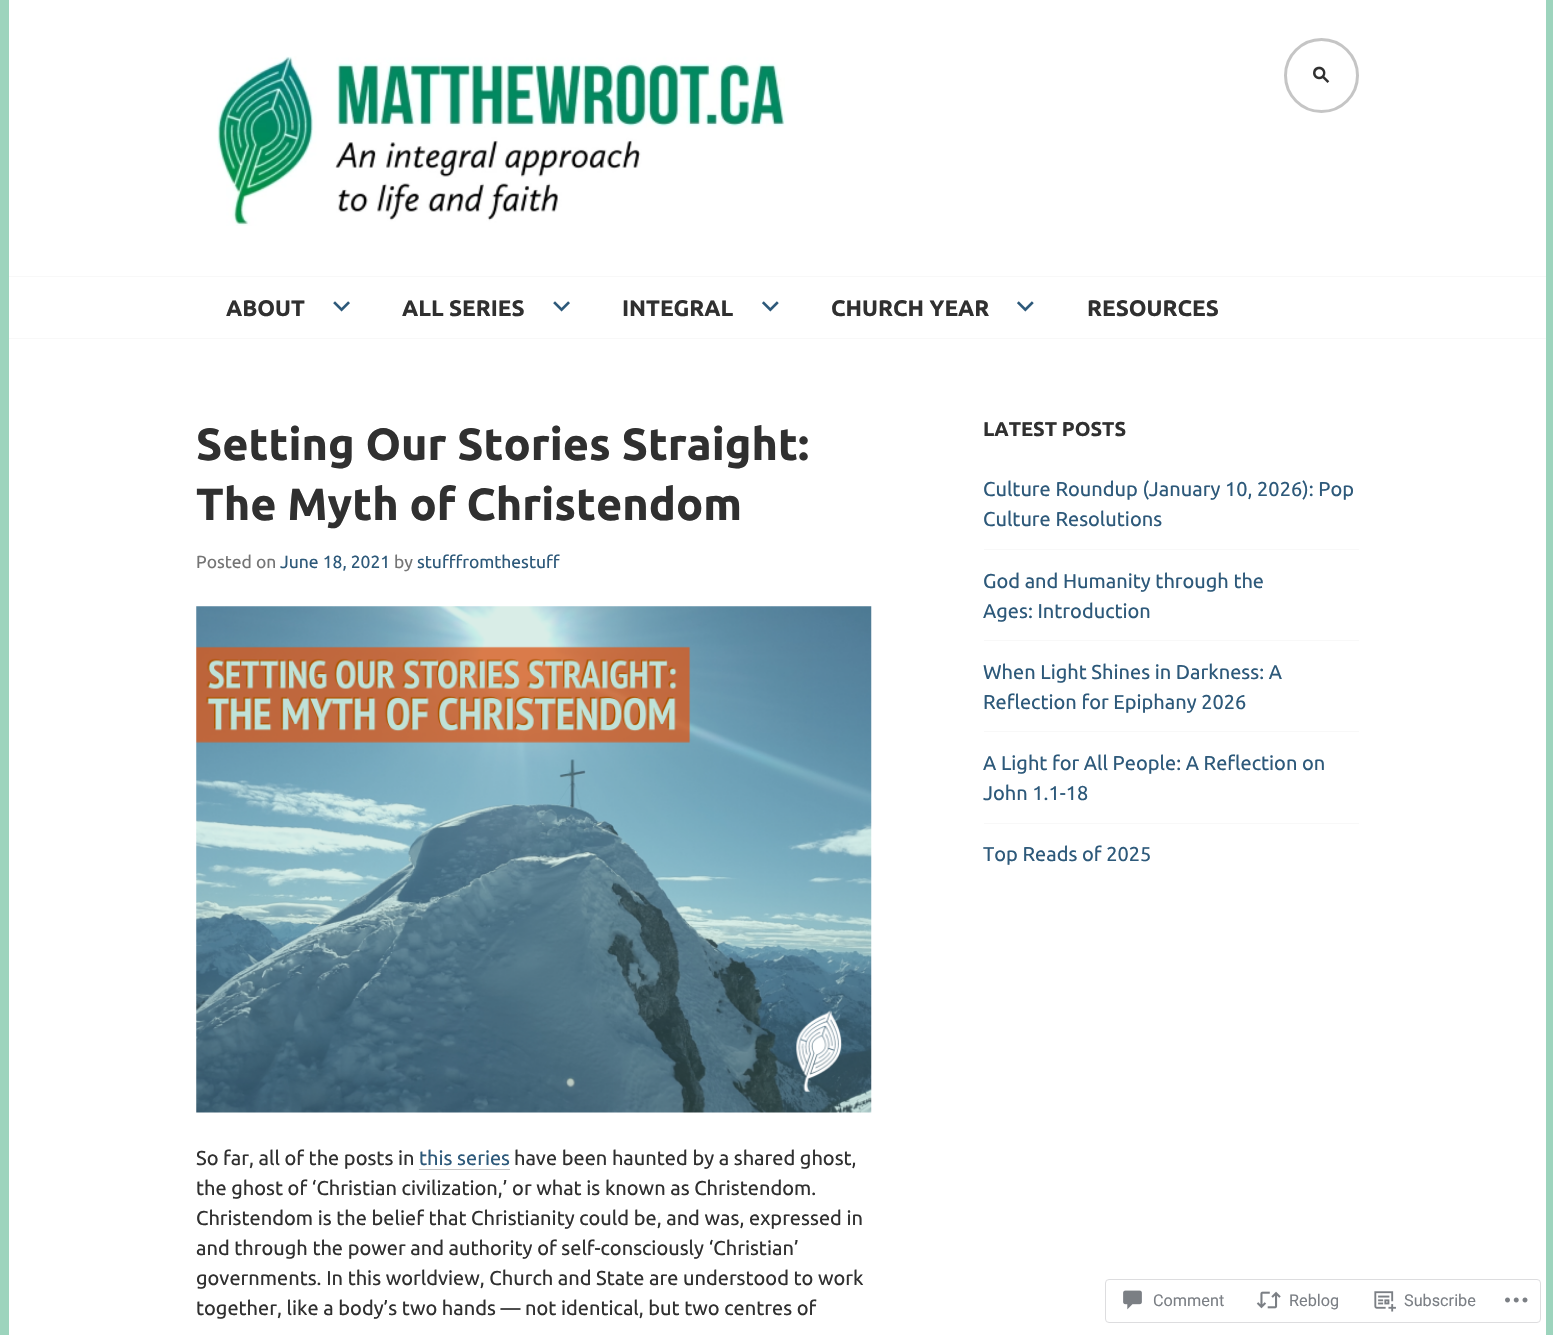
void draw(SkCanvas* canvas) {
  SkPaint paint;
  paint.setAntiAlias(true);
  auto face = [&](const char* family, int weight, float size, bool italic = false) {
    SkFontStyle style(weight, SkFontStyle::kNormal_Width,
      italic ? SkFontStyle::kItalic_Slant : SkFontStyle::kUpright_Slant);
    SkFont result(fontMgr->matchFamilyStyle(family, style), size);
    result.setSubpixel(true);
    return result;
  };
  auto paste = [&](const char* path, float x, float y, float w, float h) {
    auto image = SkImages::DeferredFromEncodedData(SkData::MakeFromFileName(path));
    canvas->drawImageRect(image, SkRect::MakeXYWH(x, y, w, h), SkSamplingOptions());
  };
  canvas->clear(0xff9dd4bd);
  paint.setColor(0xffffffff);
  canvas->drawRect(SkRect::MakeXYWH(9, 0, 1537, 338), paint);
  paint.setColor(0xfff8f8f8);
  canvas->drawRect(SkRect::MakeXYWH(9, 338, 1537, 1), paint);
  paste("img/1.png", 217, 56, 568, 170);
  paint.setStroke(true);
  paint.setStrokeWidth(3);
  paint.setColor(0xffc5c5c5);
  canvas->drawCircle(1321.5f, 75.5f, 36, paint);
  paste("img/2.png", 1313, 66, 17, 17);
  paint.setStroke(false);
  paint.setColor(0xfff8f8f8);
  canvas->drawRect(SkRect::MakeXYWH(9, 276, 1537, 1), paint);
  paste("img/3.png", 333, 301, 17, 11);
  paste("img/3.png", 553, 301, 17, 11);
  paste("img/4.png", 762, 301, 17, 11);
  paste("img/4.png", 1017, 301, 17, 11);
  paint.setColor(0xffffffff);
  canvas->drawRect(SkRect::MakeXYWH(9, 339, 1537, 996), paint);
  paste("img/5.png", 196, 606, 676, 507);
  {
    const struct { float x, y, w, h; SkColor color; } items[] = {
      {419, 1169, 91, 1, 0xffc5c5c5},
      {984, 549, 375, 1, 0xfff8f8f8},
      {984, 640, 375, 1, 0xfff8f8f8},
      {984, 731, 375, 1, 0xfff8f8f8},
      {984, 823, 375, 1, 0xfff8f8f8},
    };
    for (auto [x, y, w, h, color] : items) {
      paint.setColor(color);
      canvas->drawRect(SkRect::MakeXYWH(x, y, w, h), paint);
    }
  }
  paint.setStroke(true);
  paint.setStrokeWidth(1);
  paint.setColor(0xffdddddf);
  canvas->drawRoundRect(SkRect::MakeXYWH(1105.5f, 1279.5f, 435, 43), 3.5f, 3.5f, paint);
  paste("img/6.png", 1123, 1290, 19, 20);
  paste("img/7.png", 1256, 1291, 25, 18);
  paste("img/8.png", 1374, 1291, 22, 21);
  paste("img/9.png", 1505, 1297, 23, 6);
  auto f0 = face("Ubuntu", 700, 22.5f);
  paint.setStroke(false);
  paint.setColor(0xff303030);
  {
    const struct { const char* s; float x, y; } items[] = {
      {"ABOUT", 226, 316},
      {"ALL SERIES", 402, 316},
      {"INTEGRAL", 622, 316},
      {"CHURCH YEAR", 831, 316},
      {"RESOURCES", 1087, 316},
    };
    for (auto [s, x, y] : items) {
      canvas->drawString(s, x, y, f0, paint);
    }
  }
  auto f1 = face("Ubuntu", 700, 45);
  canvas->drawString("Setting Our Stories Straight:", 196, 460, f1, paint);
  canvas->drawString("The Myth of Christendom", 196, 520, f1, paint);
  auto f2 = face("Ubuntu", 400, 17.5f);
  paint.setColor(0xff757575);
  canvas->drawString("Posted on", 196, 568, f2, paint);
  paint.setColor(0xff2d597a);
  canvas->drawString("June 18, 2021", 280, 568, f2, paint);
  paint.setColor(0xff757575);
  canvas->drawString("by", 394, 568, f2, paint);
  paint.setColor(0xff2d597a);
  canvas->drawString("stufffromthestuff", 417, 568, f2, paint);
  auto f3 = face("Ubuntu", 400, 20);
  paint.setColor(0xff303030);
  canvas->drawString("So far, all of the posts in", 196, 1165, f3, paint);
  paint.setColor(0xff2d597a);
  canvas->drawString("this series", 419, 1165, f3, paint);
  paint.setColor(0xff303030);
  {
    const struct { const char* s; float x, y; } items[] = {
      {"have been haunted by a shared ghost,", 514, 1165},
      {"the ghost of ‘Christian civilization,’ or what is known as Christendom.", 196, 1195},
      {"Christendom is the belief that Christianity could be, and was, expressed in", 196, 1225},
      {"and through the power and authority of self-consciously ‘Christian’", 196, 1255},
      {"governments. In this worldview, Church and State are understood to work", 196, 1285},
      {"together, like a body’s two hands — not identical, but two centres of", 196, 1315},
    };
    for (auto [s, x, y] : items) {
      canvas->drawString(s, x, y, f3, paint);
    }
  }
  auto f4 = face("Ubuntu", 700, 20);
  canvas->drawString("LATEST POSTS", 983, 436, f4, paint);
  paint.setColor(0xff2d597a);
  {
    const struct { const char* s; float x, y; } items[] = {
      {"Culture Roundup (January 10, 2026): Pop", 983, 496},
      {"Culture Resolutions", 983, 526},
      {"God and Humanity through the", 983, 588},
      {"Ages: Introduction", 983, 618},
      {"When Light Shines in Darkness: A", 983, 679},
      {"Reflection for Epiphany 2026", 983, 709},
      {"A Light for All People: A Reflection on", 983, 770},
      {"John 1.1-18", 983, 800},
      {"Top Reads of 2025", 983, 861},
    };
    for (auto [s, x, y] : items) {
      canvas->drawString(s, x, y, f3, paint);
    }
  }
  auto f5 = face("Roboto", 400, 16.25f);
  paint.setColor(0xff7b7f85);
  {
    const struct { const char* s; float x, y; } items[] = {
      {"Comment", 1153, 1306},
      {"Reblog", 1289, 1306},
      {"Subscribe", 1404, 1306},
    };
    for (auto [s, x, y] : items) {
      canvas->drawString(s, x, y, f5, paint);
    }
  }
}
